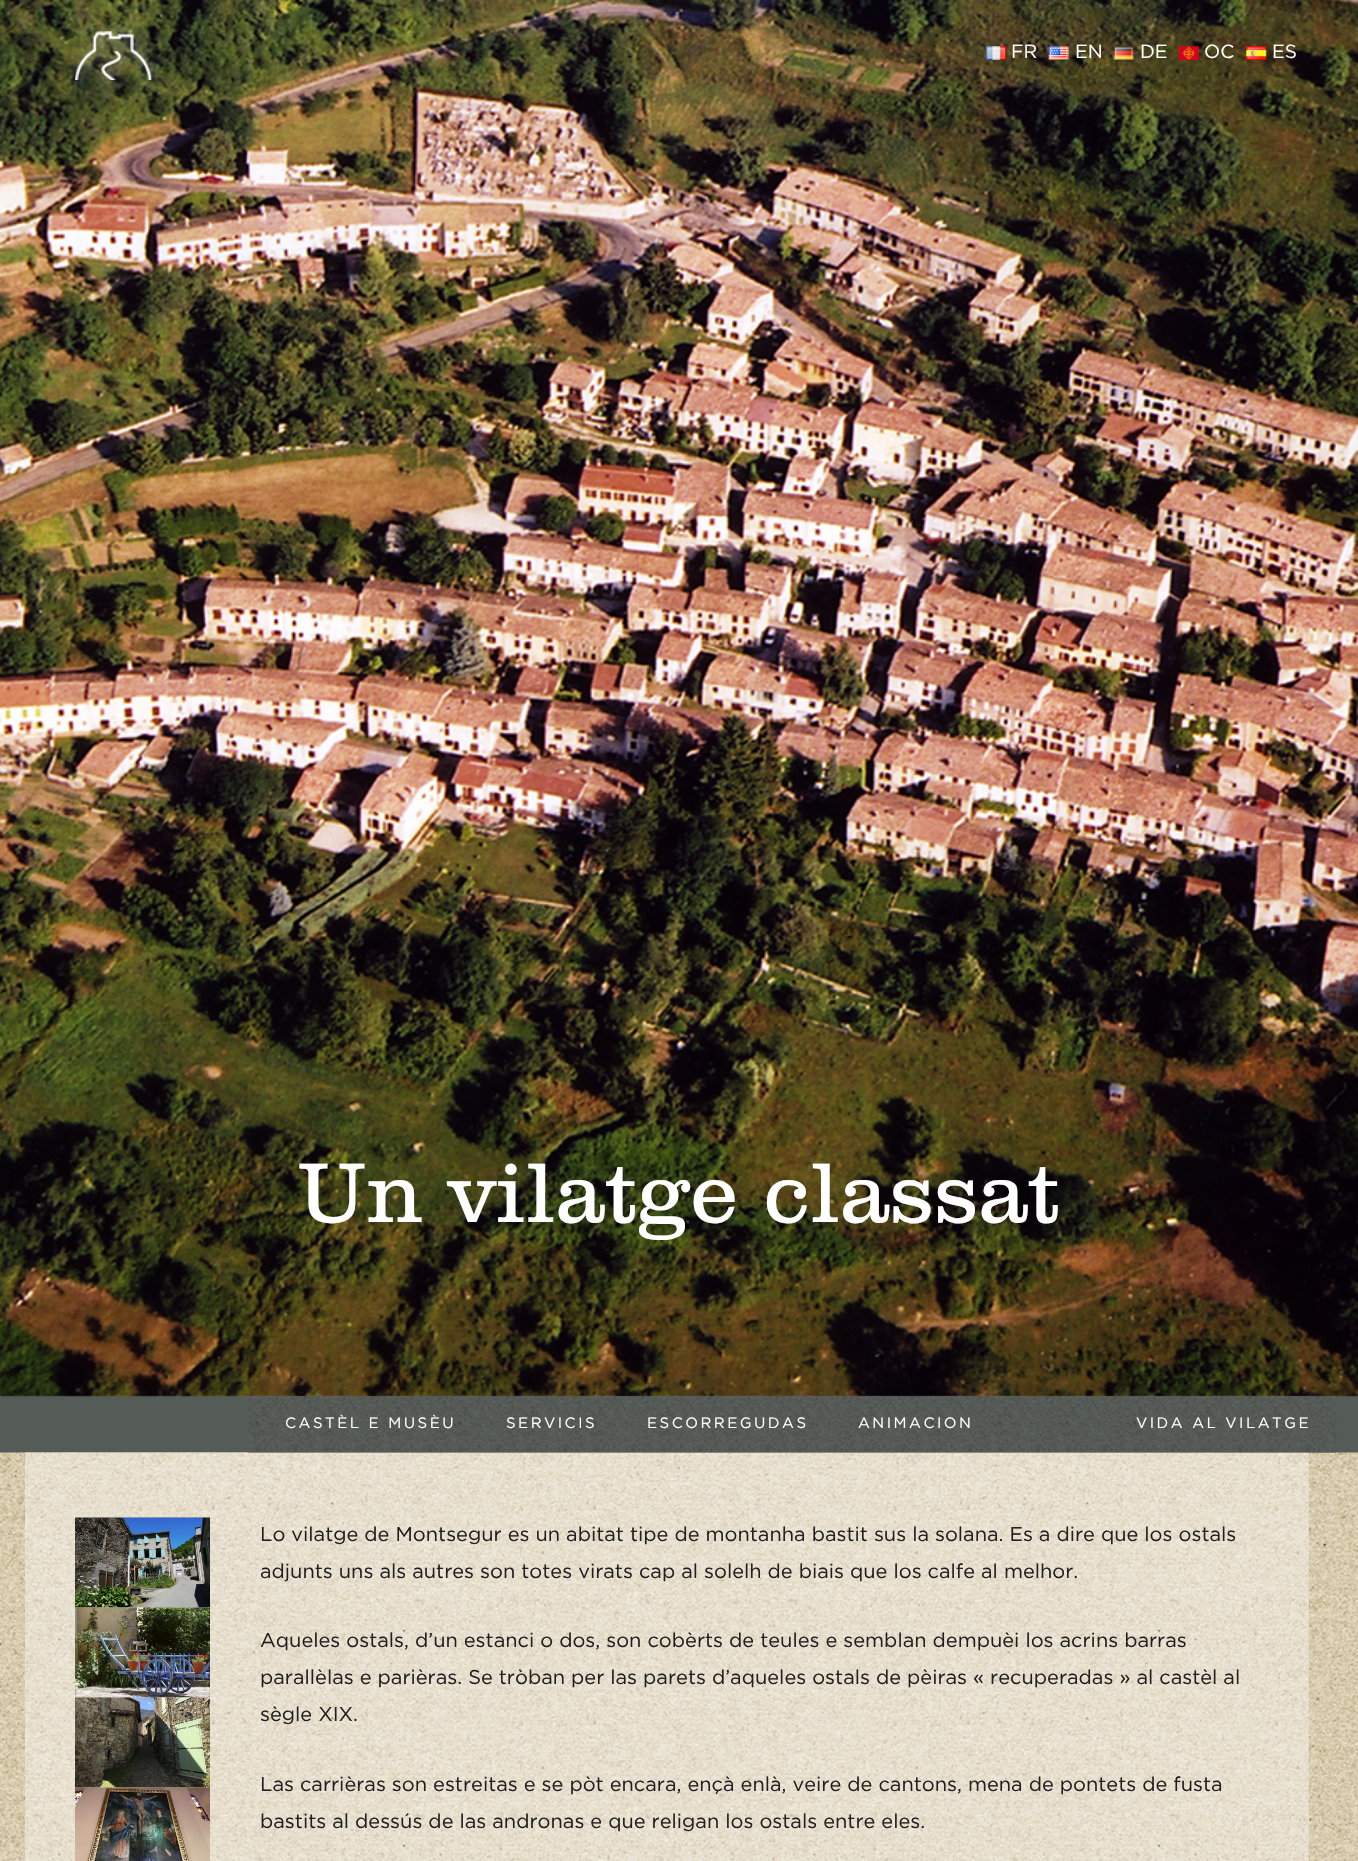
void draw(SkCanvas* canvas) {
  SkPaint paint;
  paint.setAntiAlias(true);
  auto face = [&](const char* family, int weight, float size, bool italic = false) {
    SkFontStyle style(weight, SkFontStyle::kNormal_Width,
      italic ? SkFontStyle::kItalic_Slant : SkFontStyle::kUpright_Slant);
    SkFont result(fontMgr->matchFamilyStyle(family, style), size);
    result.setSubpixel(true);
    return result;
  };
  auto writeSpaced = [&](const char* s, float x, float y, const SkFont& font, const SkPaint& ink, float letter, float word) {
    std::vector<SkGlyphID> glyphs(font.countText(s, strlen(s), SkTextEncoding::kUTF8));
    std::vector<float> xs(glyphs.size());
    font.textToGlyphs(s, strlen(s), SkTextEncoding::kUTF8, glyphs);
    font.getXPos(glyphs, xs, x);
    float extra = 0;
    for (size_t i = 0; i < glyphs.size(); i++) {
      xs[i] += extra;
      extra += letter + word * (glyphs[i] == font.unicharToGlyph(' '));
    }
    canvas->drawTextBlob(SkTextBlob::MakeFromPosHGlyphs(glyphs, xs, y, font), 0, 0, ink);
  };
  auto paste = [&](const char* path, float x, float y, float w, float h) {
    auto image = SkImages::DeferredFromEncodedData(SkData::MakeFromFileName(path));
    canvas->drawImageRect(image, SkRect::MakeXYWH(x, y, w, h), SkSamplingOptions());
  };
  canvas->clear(0xff555b57);
  paste("img/7.png", 0, 0, 1358, 1397);
  paste("img/1.png", 68, 23, 95, 68);
  paste("img/2.png", 986, 46, 21, 14);
  paste("img/3.png", 1048, 46, 21, 14);
  paste("img/4.png", 1113, 46, 21, 14);
  paste("img/5.png", 1178, 46, 21, 14);
  paste("img/6.png", 1246, 46, 21, 14);
  paste("img/9.png", 0, 1452, 1358, 409);
  paste("img/10.png", 25, 1452, 1284, 409);
  paste("img/8.png", 247, 1396, 1090, 57);
  paste("img/11.png", 75, 1517, 135, 91);
  paste("img/12.png", 75, 1607, 135, 91);
  paste("img/13.png", 75, 1697, 135, 91);
  paste("img/14.png", 75, 1787, 135, 74);
  auto f0 = face("Gotham", 400, 19);
  paint.setColor(0xffffffff);
  {
    const struct { const char* s; float x, y; } items[] = {
      {"FR", 1011, 58},
      {"EN", 1075, 58},
      {"DE", 1140, 58},
      {"OC", 1204, 58},
      {"ES", 1272, 58},
    };
    for (auto [s, x, y] : items) {
      canvas->drawString(s, x, y, f0, paint);
    }
  }
  auto f1 = face("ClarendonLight", 300, 87.5f);
  canvas->drawString("Un vilatge classat", 298, 1222, f1, paint);
  auto f2 = face("Gotham", 400, 15);
  {
    const struct { const char* s; float x, y; } items[] = {
      {"CASTÈL E MUSÈU", 285, 1428},
      {"SERVICIS", 506, 1428},
      {"ESCORREGUDAS", 647, 1428},
      {"ANIMACION", 858, 1428},
      {"VIDA AL VILATGE", 1136, 1428},
    };
    for (auto [s, x, y] : items) {
      writeSpaced(s, x, y, f2, paint, 2.5f, 0);
    }
  }
  auto f3 = face("Gotham", 400, 20);
  paint.setColor(0xff231f20);
  {
    const struct { const char* s; float x, y; } items[] = {
      {"Lo vilatge de Montsegur es un abitat tipe de montanha bastit sus la solana. Es a dire que los ostals", 260, 1541},
      {"adjunts uns als autres son totes virats cap al solelh de biais que los calfe al melhor.", 260, 1578},
      {"Aqueles ostals, d’un estanci o dos, son cobèrts de teules e semblan dempuèi los acrins barras", 260, 1647},
      {"parallèlas e parièras. Se tròban per las parets d’aqueles ostals de pèiras « recuperadas » al castèl al", 260, 1684},
      {"sègle XIX.", 260, 1721},
      {"Las carrièras son estreitas e se pòt encara, ençà enlà, veire de cantons, mena de pontets de fusta", 260, 1791},
      {"bastits al dessús de las andronas e que religan los ostals entre eles.", 260, 1828},
    };
    for (auto [s, x, y] : items) {
      canvas->drawString(s, x, y, f3, paint);
    }
  }
}
